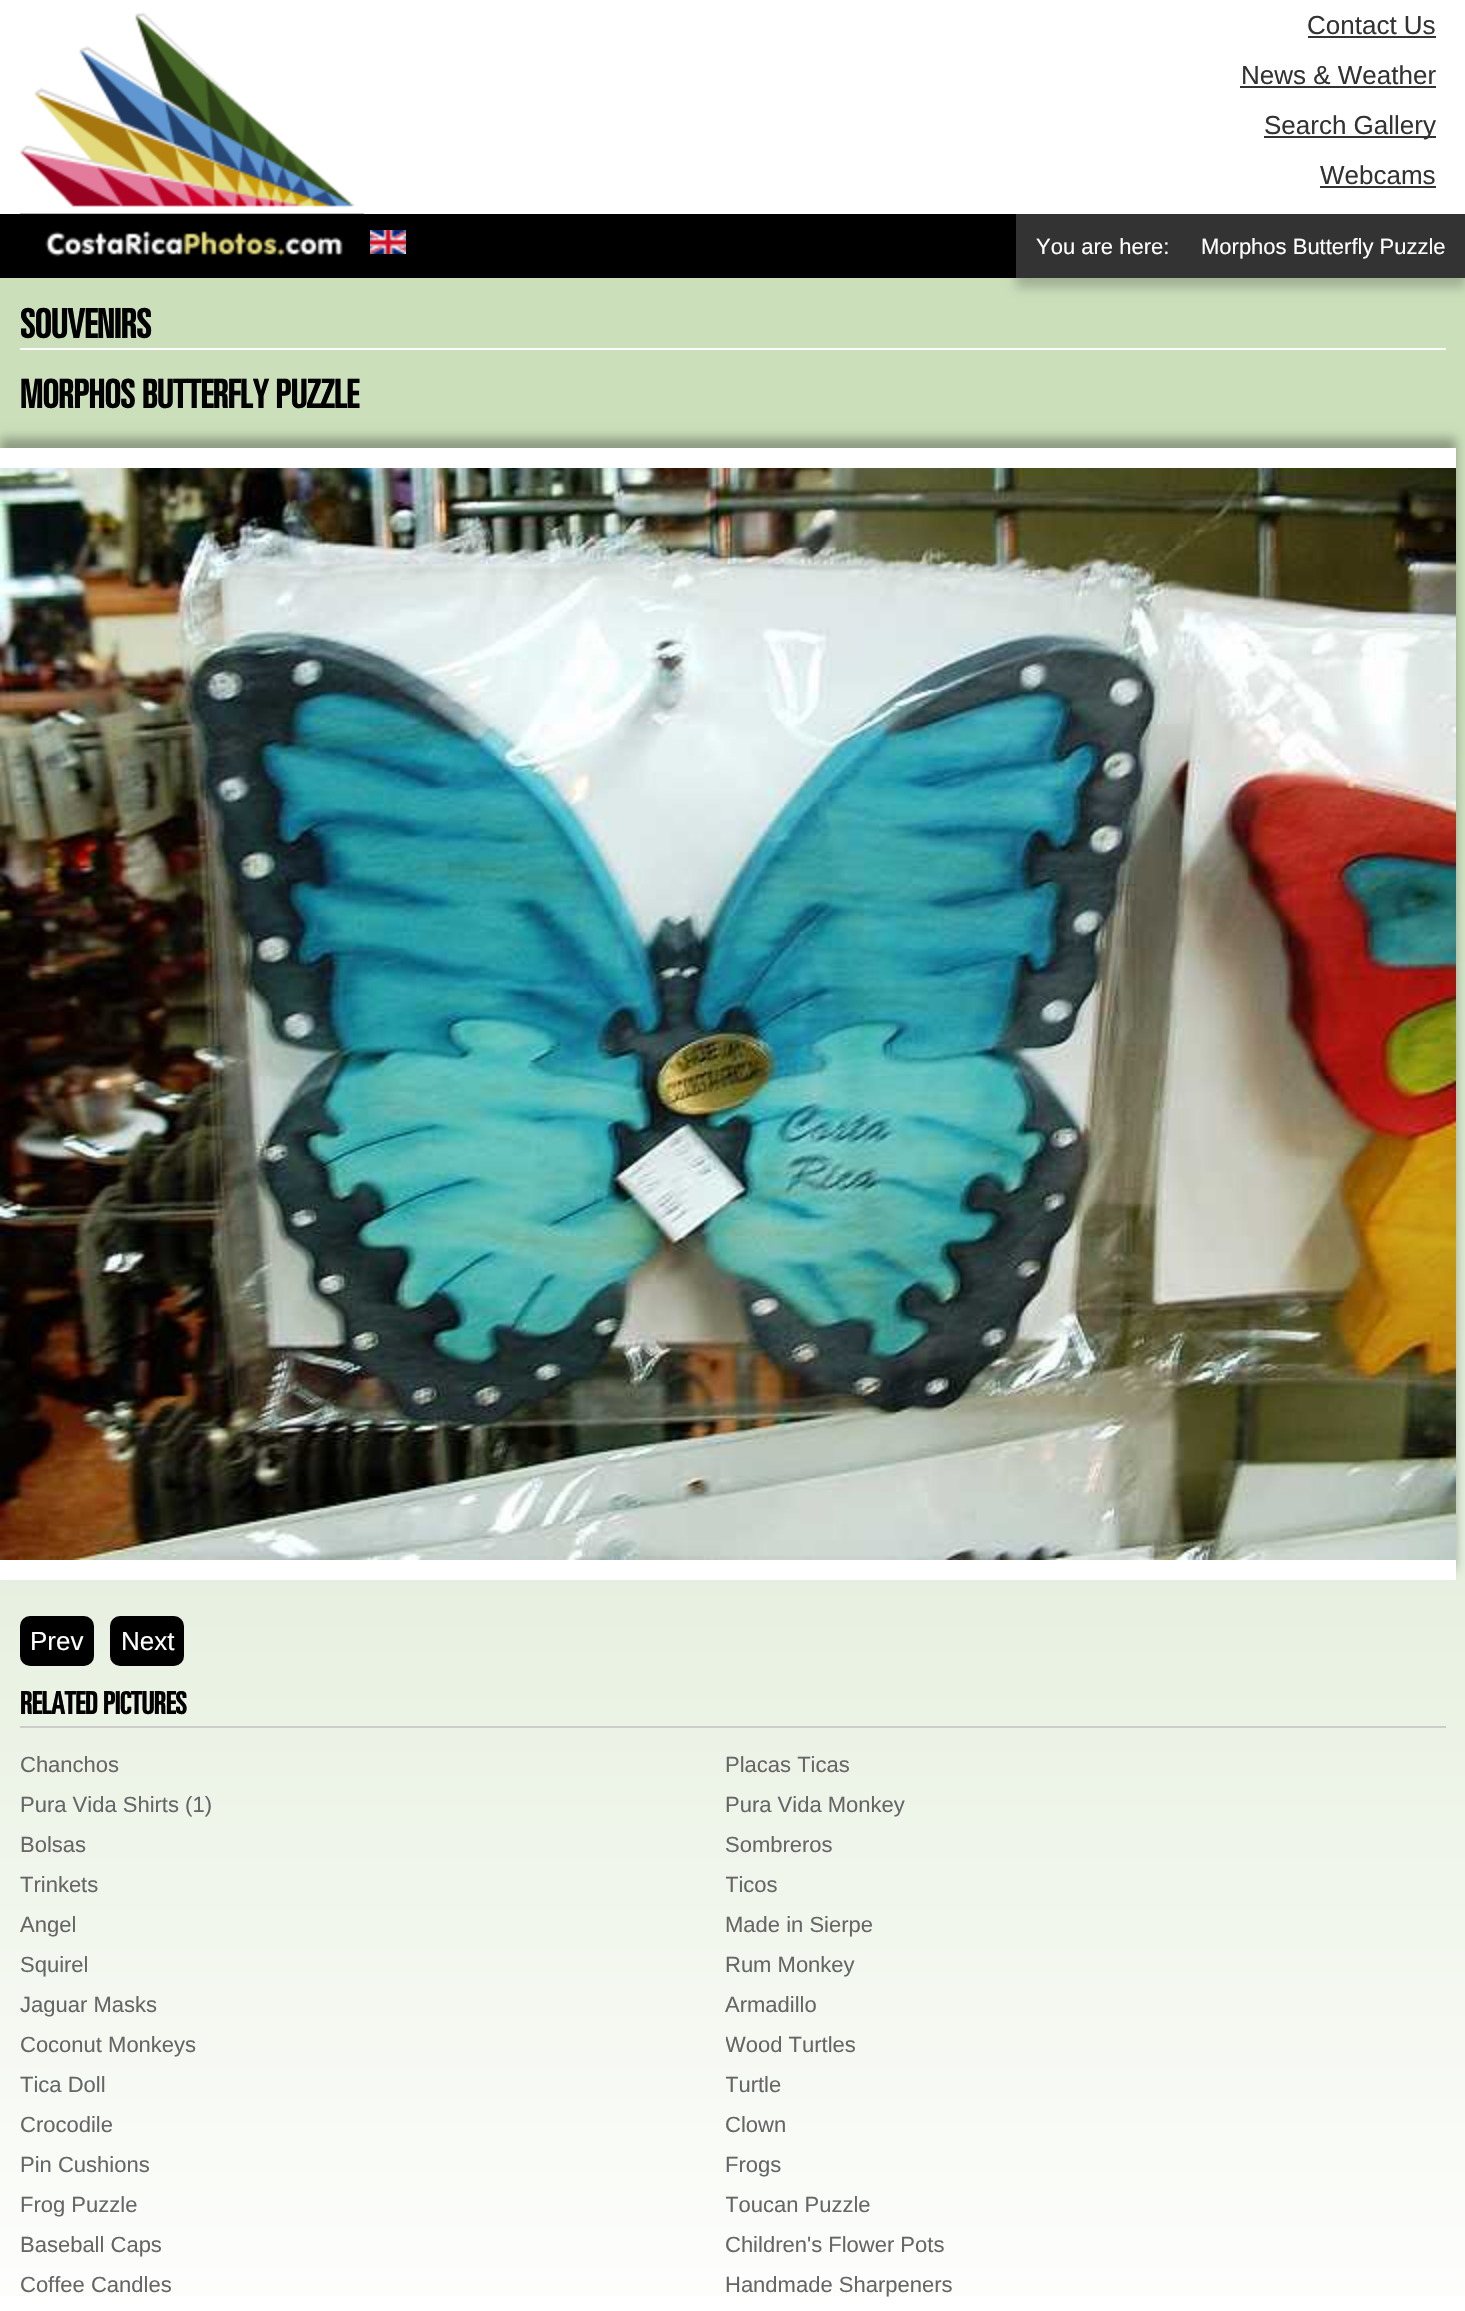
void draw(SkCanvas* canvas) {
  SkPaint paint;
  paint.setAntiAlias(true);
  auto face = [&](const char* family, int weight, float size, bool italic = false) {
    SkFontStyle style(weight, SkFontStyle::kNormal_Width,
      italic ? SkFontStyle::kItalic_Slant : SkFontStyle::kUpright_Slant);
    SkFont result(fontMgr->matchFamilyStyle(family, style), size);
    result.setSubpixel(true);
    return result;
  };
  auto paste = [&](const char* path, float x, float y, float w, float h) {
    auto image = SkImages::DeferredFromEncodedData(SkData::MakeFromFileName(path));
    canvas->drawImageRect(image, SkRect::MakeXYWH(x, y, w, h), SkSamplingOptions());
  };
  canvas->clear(0xffffffff);
  {
    const SkColor colors[] = {0xffcbdfbb, 0xffffffff};
    const float stops[] = {0.2f, 0.7f};
    const SkPoint ends[] = {{733, 0}, {733, 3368}};
    paint.setShader(SkGradientShader::MakeLinear(ends, colors, stops, 2, SkTileMode::kClamp));
    paint.setAlpha(255);
  }
  canvas->drawRect(SkRect::MakeXYWH(0, 278, 1465, 2018), paint);
  paint.setShader(nullptr);
  paint.setColor(0xff000000);
  canvas->drawRect(SkRect::MakeXYWH(0, 214, 1016, 64), paint);
  paste("img/1.png", 20, 12, 344, 245);
  {
    const struct { float x, y, w, h; SkColor color; } items[] = {
      {1308, 36, 128, 2, 0xff333333},
      {1240, 86, 196, 2, 0xff333333},
      {1264, 136, 172, 2, 0xff333333},
      {1320, 186, 116, 2, 0xff333333},
    };
    for (auto [x, y, w, h, color] : items) {
      paint.setColor(color);
      canvas->drawRect(SkRect::MakeXYWH(x, y, w, h), paint);
    }
  }
  paste("img/2.png", 370, 230, 36, 24);
  paint.setColor(0x33000000);
  paint.setMaskFilter(SkMaskFilter::MakeBlur(kNormal_SkBlurStyle, 5));
  canvas->drawRect(SkRect::MakeXYWH(1016, 224, 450, 64), paint);
  paint.setMaskFilter(nullptr);
  paint.setColor(0xff333333);
  canvas->drawRect(SkRect::MakeXYWH(1016, 214, 449, 64), paint);
  paint.setColor(0xffffffff);
  canvas->drawRect(SkRect::MakeXYWH(20, 348, 1426, 2), paint);
  paint.setColor(0x4d000000);
  paint.setMaskFilter(SkMaskFilter::MakeBlur(kNormal_SkBlurStyle, 5));
  canvas->drawRect(SkRect::MakeXYWH(0, 438, 1456, 1132), paint);
  paint.setMaskFilter(nullptr);
  paint.setColor(0xffffffff);
  canvas->drawRect(SkRect::MakeXYWH(0, 448, 1456, 20), paint);
  paste("img/3.png", 0, 468, 1456, 1092);
  canvas->drawRect(SkRect::MakeXYWH(0, 1560, 1456, 20), paint);
  paint.setColor(0xff000000);
  canvas->drawRoundRect(SkRect::MakeXYWH(20, 1616, 74, 50), 10, 10, paint);
  canvas->drawRoundRect(SkRect::MakeXYWH(110, 1616, 74, 50), 10, 10, paint);
  paint.setColor(0xffcccccc);
  canvas->drawRect(SkRect::MakeXYWH(20, 1726, 1426, 2), paint);
  auto f0 = face("Liberation Sans", 400, 26);
  paint.setColor(0xff333333);
  {
    const struct { const char* s; float x, y; } items[] = {
      {"Contact Us", 1307, 34},
      {"News & Weather", 1241, 84},
      {"Search Gallery", 1264, 134},
      {"Webcams", 1320, 184},
    };
    for (auto [s, x, y] : items) {
      canvas->drawString(s, x, y, f0, paint);
    }
  }
  auto f1 = face("Liberation Sans", 400, 22);
  paint.setColor(0xffffffff);
  canvas->drawString("You are here:", 1036, 254, f1, paint);
  canvas->drawString("Morphos Butterfly Puzzle", 1201, 254, f1, paint);
  auto f2 = face("Univers", 700, 40);
  paint.setColor(0xff000000);
  canvas->drawString("SOUVENIRS", 20, 338, f2, paint);
  auto f3 = face("Univers", 700, 39);
  canvas->drawString("MORPHOS BUTTERFLY PUZZLE", 20, 408, f3, paint);
  paint.setColor(0xffffffff);
  canvas->drawString("Prev", 30, 1650, f0, paint);
  canvas->drawString("Next", 121, 1650, f0, paint);
  auto f4 = face("Univers", 700, 30.5f);
  paint.setColor(0xff000000);
  canvas->drawString("RELATED PICTURES", 20, 1714, f4, paint);
  paint.setColor(0xff666666);
  {
    const struct { const char* s; float x, y; } items[] = {
      {"Chanchos", 20, 1772},
      {"Placas Ticas", 725, 1772},
      {"Pura Vida Shirts (1)", 20, 1812},
      {"Pura Vida Monkey", 725, 1812},
      {"Bolsas", 20, 1852},
      {"Sombreros", 725, 1852},
      {"Trinkets", 20, 1892},
    };
    for (auto [s, x, y] : items) {
      canvas->drawString(s, x, y, f1, paint);
    }
  }
  canvas->save();
  canvas->clipRect(SkRect::MakeXYWH(726, 1868, 712, 40));
  canvas->drawString("Ticos", 725, 1892, f1, paint);
  canvas->restore();
  {
    const struct { const char* s; float x, y; } items[] = {
      {"Angel", 20, 1932},
      {"Made in Sierpe", 725, 1932},
      {"Squirel", 20, 1972},
      {"Rum Monkey", 725, 1972},
      {"Jaguar Masks", 20, 2012},
      {"Armadillo", 725, 2012},
      {"Coconut Monkeys", 20, 2052},
    };
    for (auto [s, x, y] : items) {
      canvas->drawString(s, x, y, f1, paint);
    }
  }
  canvas->save();
  canvas->clipRect(SkRect::MakeXYWH(726, 2028, 712, 40));
  canvas->drawString("Wood Turtles", 725, 2052, f1, paint);
  canvas->restore();
  canvas->drawString("Tica Doll", 20, 2092, f1, paint);
  canvas->save();
  canvas->clipRect(SkRect::MakeXYWH(726, 2068, 712, 40));
  canvas->drawString("Turtle", 725, 2092, f1, paint);
  canvas->restore();
  {
    const struct { const char* s; float x, y; } items[] = {
      {"Crocodile", 20, 2132},
      {"Clown", 725, 2132},
      {"Pin Cushions", 20, 2172},
      {"Frogs", 725, 2172},
      {"Frog Puzzle", 20, 2212},
    };
    for (auto [s, x, y] : items) {
      canvas->drawString(s, x, y, f1, paint);
    }
  }
  canvas->save();
  canvas->clipRect(SkRect::MakeXYWH(726, 2188, 712, 40));
  canvas->drawString("Toucan Puzzle", 725, 2212, f1, paint);
  canvas->restore();
  {
    const struct { const char* s; float x, y; } items[] = {
      {"Baseball Caps", 20, 2252},
      {"Children's Flower Pots", 725, 2252},
      {"Coffee Candles", 20, 2292},
      {"Handmade Sharpeners", 725, 2292},
    };
    for (auto [s, x, y] : items) {
      canvas->drawString(s, x, y, f1, paint);
    }
  }
}
